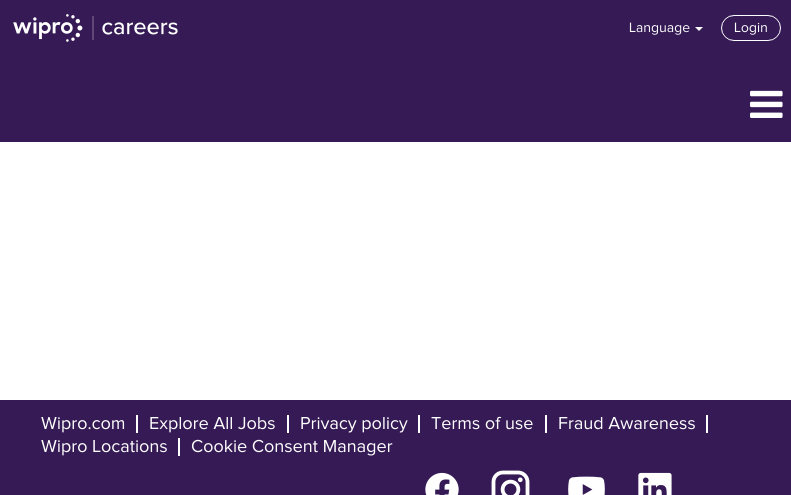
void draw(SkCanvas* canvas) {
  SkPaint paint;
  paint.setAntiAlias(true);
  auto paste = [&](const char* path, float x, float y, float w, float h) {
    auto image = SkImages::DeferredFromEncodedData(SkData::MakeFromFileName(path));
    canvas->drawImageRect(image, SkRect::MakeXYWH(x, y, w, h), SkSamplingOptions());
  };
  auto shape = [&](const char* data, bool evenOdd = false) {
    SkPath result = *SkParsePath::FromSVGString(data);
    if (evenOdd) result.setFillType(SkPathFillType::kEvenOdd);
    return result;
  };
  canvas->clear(0xffffffff);
  paint.setColor(0xff351a55);
  canvas->drawRect(SkRect::MakeXYWH(0, 0, 791, 142), paint);
  paste("img/1.png", 13, 14, 165, 28);
  paste("img/2.png", 629, 22, 61, 13);
  paint.setColor(0xfffcfcfc);
  canvas->drawPath(shape("M695 27H703L699 31Z"), paint);
  paint.setStroke(true);
  paint.setStrokeWidth(1);
  paint.setColor(0xffffffff);
  canvas->drawRoundRect(SkRect::MakeXYWH(721.5f, 15.5f, 59, 25), 12.5f, 12.5f, paint);
  paste("img/3.png", 734, 22, 33, 13);
  paste("img/4.png", 750, 90, 33, 28);
  paint.setStroke(false);
  paint.setColor(0xff351a55);
  canvas->drawRect(SkRect::MakeXYWH(0, 400, 791, 95), paint);
  paint.setColor(0xffffffff);
  canvas->drawRect(SkRect::MakeXYWH(136, 415, 2, 18), paint);
  paste("img/5.png", 41, 417, 84, 16);
  canvas->drawRect(SkRect::MakeXYWH(287, 415, 2, 18), paint);
  paste("img/6.png", 150, 417, 125, 16);
  canvas->drawRect(SkRect::MakeXYWH(418, 415, 2, 18), paint);
  paste("img/7.png", 301, 417, 107, 16);
  canvas->drawRect(SkRect::MakeXYWH(545, 415, 2, 18), paint);
  paste("img/8.png", 431, 416, 102, 14);
  canvas->drawRect(SkRect::MakeXYWH(706, 415, 2, 18), paint);
  paste("img/9.png", 559, 417, 136, 13);
  canvas->drawRect(SkRect::MakeXYWH(178, 438, 2, 18), paint);
  paste("img/10.png", 41, 440, 126, 16);
  paste("img/11.png", 191, 439, 202, 17);
  paste("img/12.png", 425, 472, 34, 23);
  paste("img/13.png", 491, 470, 39, 25);
  paste("img/14.png", 568, 476, 37, 19);
  paste("img/15.png", 638, 472, 34, 23);
}
